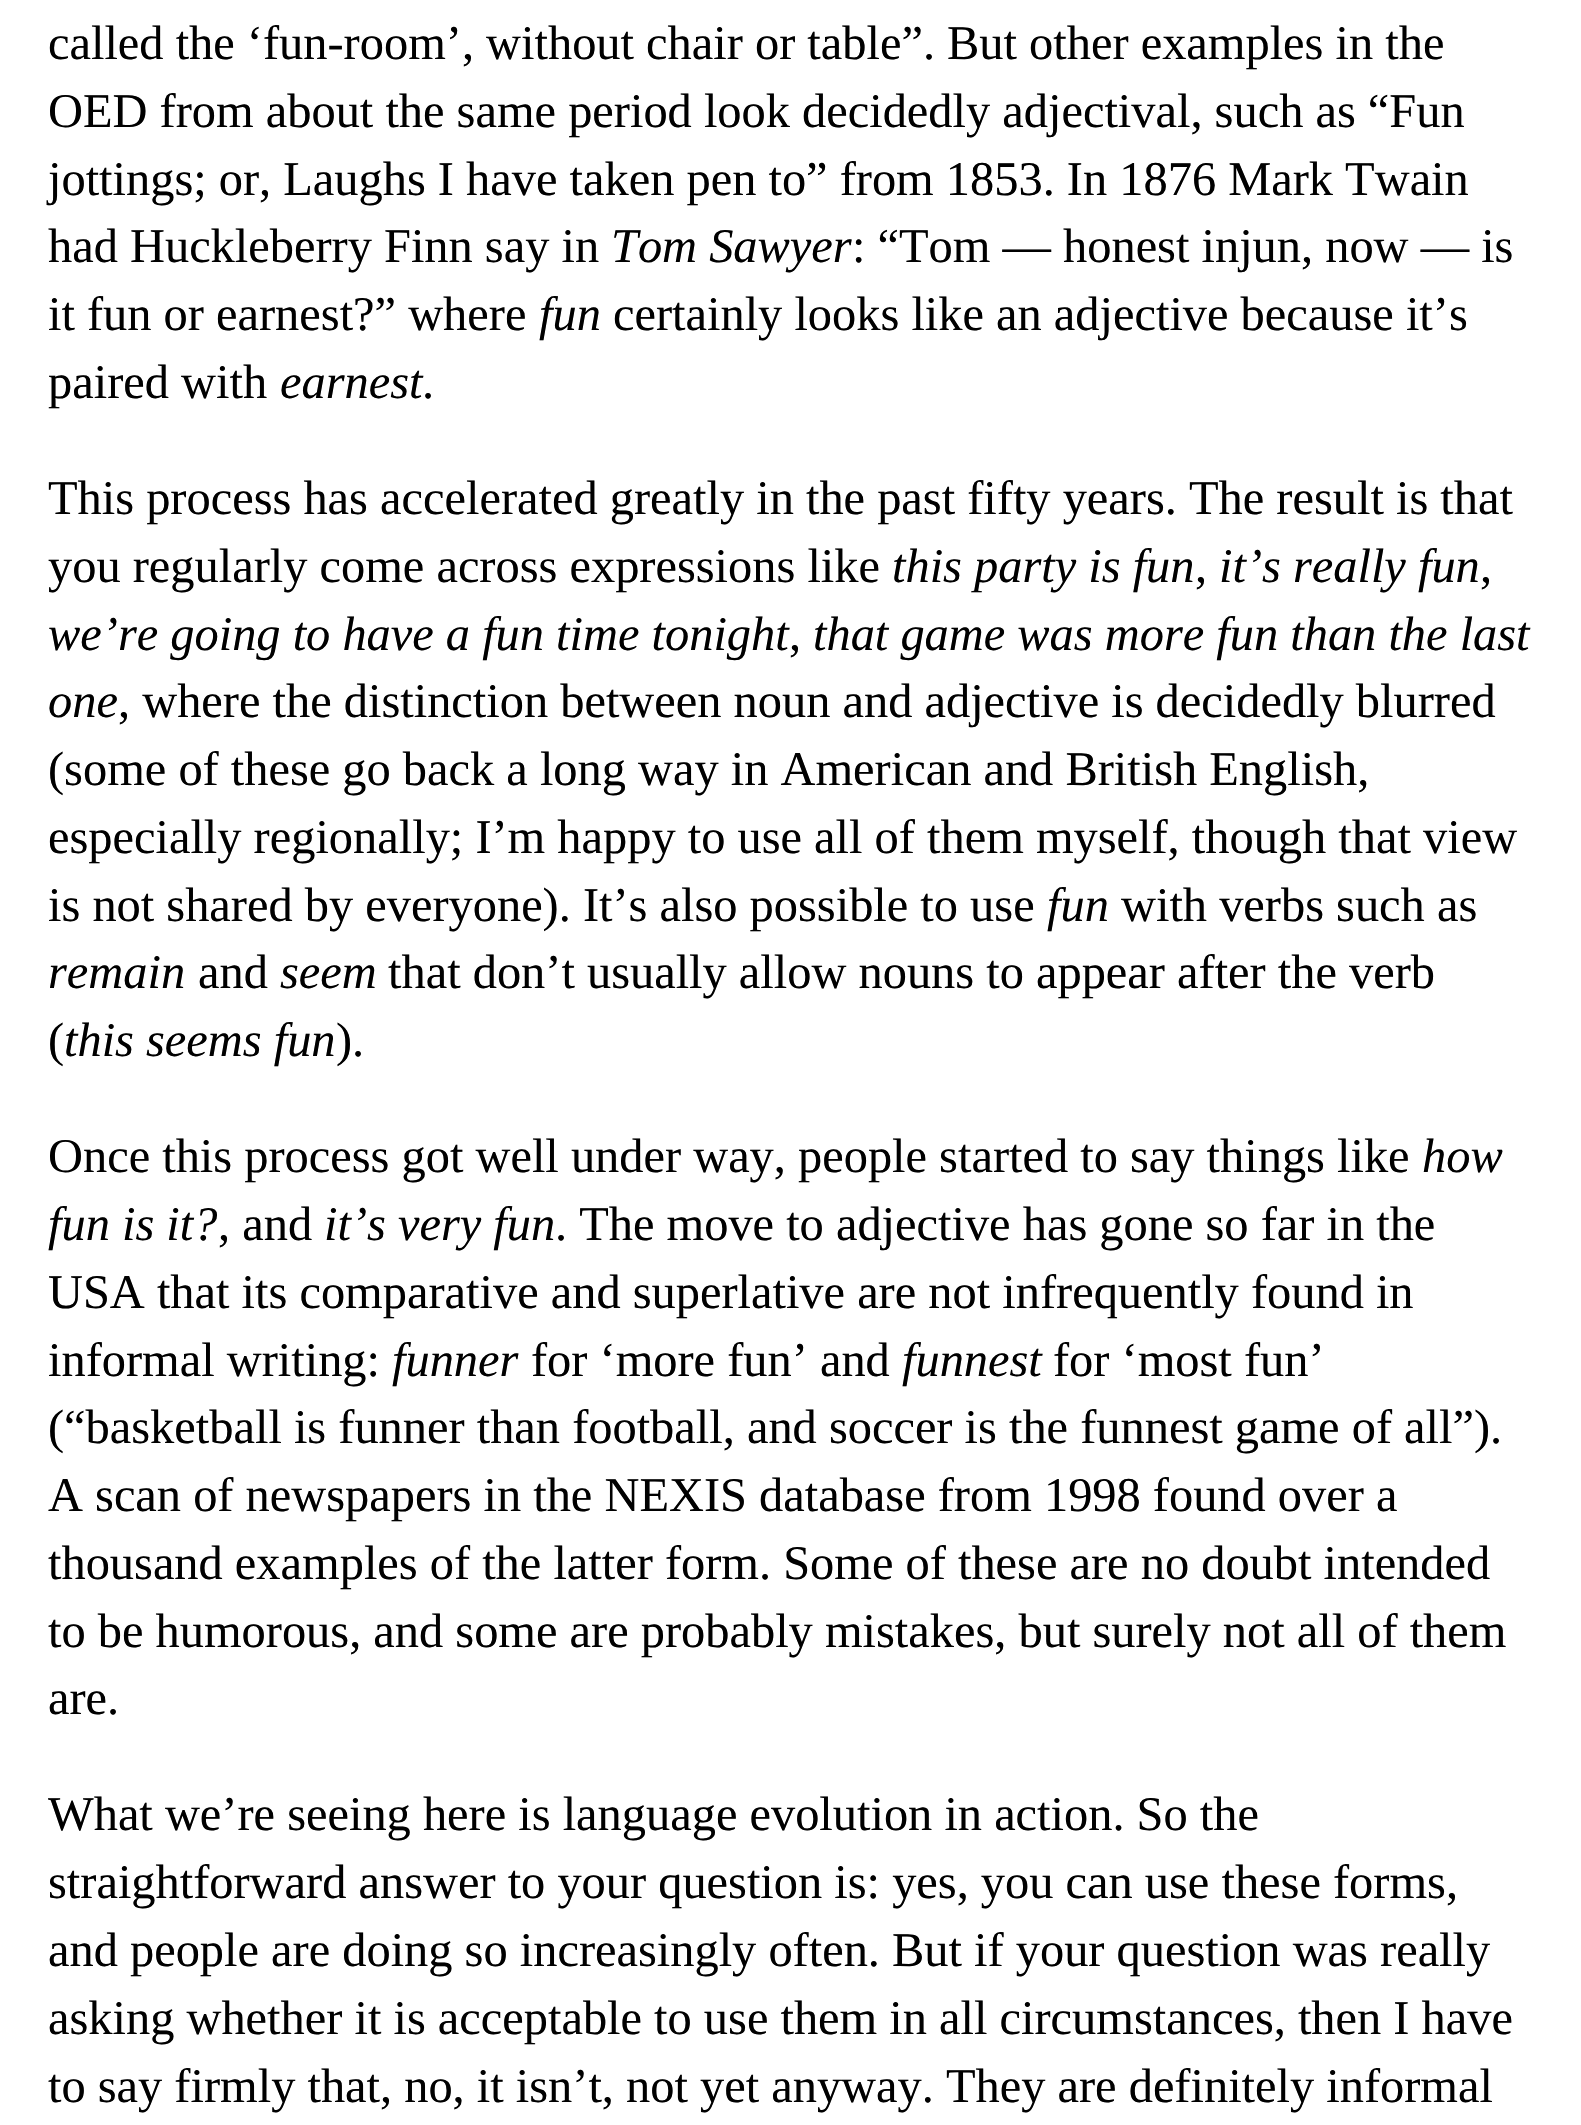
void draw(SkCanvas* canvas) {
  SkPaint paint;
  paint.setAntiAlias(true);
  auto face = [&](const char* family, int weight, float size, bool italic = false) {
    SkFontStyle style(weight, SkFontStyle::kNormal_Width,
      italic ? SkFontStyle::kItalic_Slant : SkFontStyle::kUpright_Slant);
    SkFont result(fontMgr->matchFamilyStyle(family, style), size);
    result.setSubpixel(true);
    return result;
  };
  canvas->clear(0xffffffff);
  auto f0 = face("Liberation Serif", 400, 48.4f);
  paint.setColor(0xff000000);
  {
    const struct { const char* s; float x, y; } items[] = {
      {"called the ‘fun-room’, without chair or table”. But other examples in the", 48, 59},
      {"OED from about the same period look decidedly adjectival, such as “Fun", 48, 127},
      {"jottings; or, Laughs I have taken pen to” from 1853. In 1876 Mark Twain", 48, 195},
      {"had Huckleberry Finn say in", 48, 262},
    };
    for (auto [s, x, y] : items) {
      canvas->drawString(s, x, y, f0, paint);
    }
  }
  auto f1 = face("Liberation Serif", 400, 48.4f, true);
  canvas->drawString("Tom Sawyer", 611, 262, f1, paint);
  canvas->drawString(": “Tom — honest injun, now — is", 852, 262, f0, paint);
  canvas->drawString("it fun or earnest?” where", 48, 330, f0, paint);
  canvas->drawString("fun", 539, 330, f1, paint);
  canvas->drawString("certainly looks like an adjective because it’s", 613, 330, f0, paint);
  canvas->drawString("paired with", 48, 398, f0, paint);
  canvas->drawString("earnest", 280, 398, f1, paint);
  {
    const struct { const char* s; float x, y; } items[] = {
      {".", 422, 398},
      {"This process has accelerated greatly in the past fifty years. The result is that", 48, 514},
      {"you regularly come across expressions like", 48, 582},
    };
    for (auto [s, x, y] : items) {
      canvas->drawString(s, x, y, f0, paint);
    }
  }
  canvas->drawString("this party is fun", 892, 582, f1, paint);
  canvas->drawString(",", 1195, 582, f0, paint);
  canvas->drawString("it’s really fun", 1219, 582, f1, paint);
  canvas->drawString(",", 1480, 582, f0, paint);
  canvas->drawString("we’re going to have a fun time tonight", 48, 650, f1, paint);
  canvas->drawString(",", 789, 650, f0, paint);
  canvas->drawString("that game was more fun than the last", 813, 650, f1, paint);
  canvas->drawString("one", 48, 717, f1, paint);
  {
    const struct { const char* s; float x, y; } items[] = {
      {", where the distinction between noun and adjective is decidedly blurred", 118, 717},
      {"(some of these go back a long way in American and British English,", 48, 785},
      {"especially regionally; I’m happy to use all of them myself, though that view", 48, 853},
      {"is not shared by everyone). It’s also possible to use", 48, 921},
    };
    for (auto [s, x, y] : items) {
      canvas->drawString(s, x, y, f0, paint);
    }
  }
  canvas->drawString("fun", 1047, 921, f1, paint);
  canvas->drawString("with verbs such as", 1121, 921, f0, paint);
  canvas->drawString("remain", 48, 988, f1, paint);
  canvas->drawString("and", 198, 988, f0, paint);
  canvas->drawString("seem", 280, 988, f1, paint);
  canvas->drawString("that don’t usually allow nouns to appear after the verb", 388, 988, f0, paint);
  canvas->drawString("(", 48, 1056, f0, paint);
  canvas->drawString("this seems fun", 64, 1056, f1, paint);
  canvas->drawString(").", 336, 1056, f0, paint);
  canvas->drawString("Once this process got well under way, people started to say things like", 48, 1172, f0, paint);
  canvas->drawString("how", 1422, 1172, f1, paint);
  canvas->drawString("fun is it?", 48, 1240, f1, paint);
  canvas->drawString(", and", 218, 1240, f0, paint);
  canvas->drawString("it’s very fun", 324, 1240, f1, paint);
  {
    const struct { const char* s; float x, y; } items[] = {
      {". The move to adjective has gone so far in the", 555, 1240},
      {"USA that its comparative and superlative are not infrequently found in", 48, 1308},
      {"informal writing:", 48, 1376},
    };
    for (auto [s, x, y] : items) {
      canvas->drawString(s, x, y, f0, paint);
    }
  }
  canvas->drawString("funner", 392, 1376, f1, paint);
  canvas->drawString("for ‘more fun’ and", 531, 1376, f0, paint);
  canvas->drawString("funnest", 902, 1376, f1, paint);
  {
    const struct { const char* s; float x, y; } items[] = {
      {"for ‘most fun’", 1053, 1376},
      {"(“basketball is funner than football, and soccer is the funnest game of all”).", 48, 1443},
      {"A scan of newspapers in the NEXIS database from 1998 found over a", 48, 1511},
      {"thousand examples of the latter form. Some of these are no doubt intended", 48, 1579},
      {"to be humorous, and some are probably mistakes, but surely not all of them", 48, 1647},
      {"are.", 48, 1714},
      {"What we’re seeing here is language evolution in action. So the", 48, 1830},
      {"straightforward answer to your question is: yes, you can use these forms,", 48, 1898},
      {"and people are doing so increasingly often. But if your question was really", 48, 1966},
      {"asking whether it is acceptable to use them in all circumstances, then I have", 48, 2034},
      {"to say firmly that, no, it isn’t, not yet anyway. They are definitely informal", 48, 2102},
    };
    for (auto [s, x, y] : items) {
      canvas->drawString(s, x, y, f0, paint);
    }
  }
}
